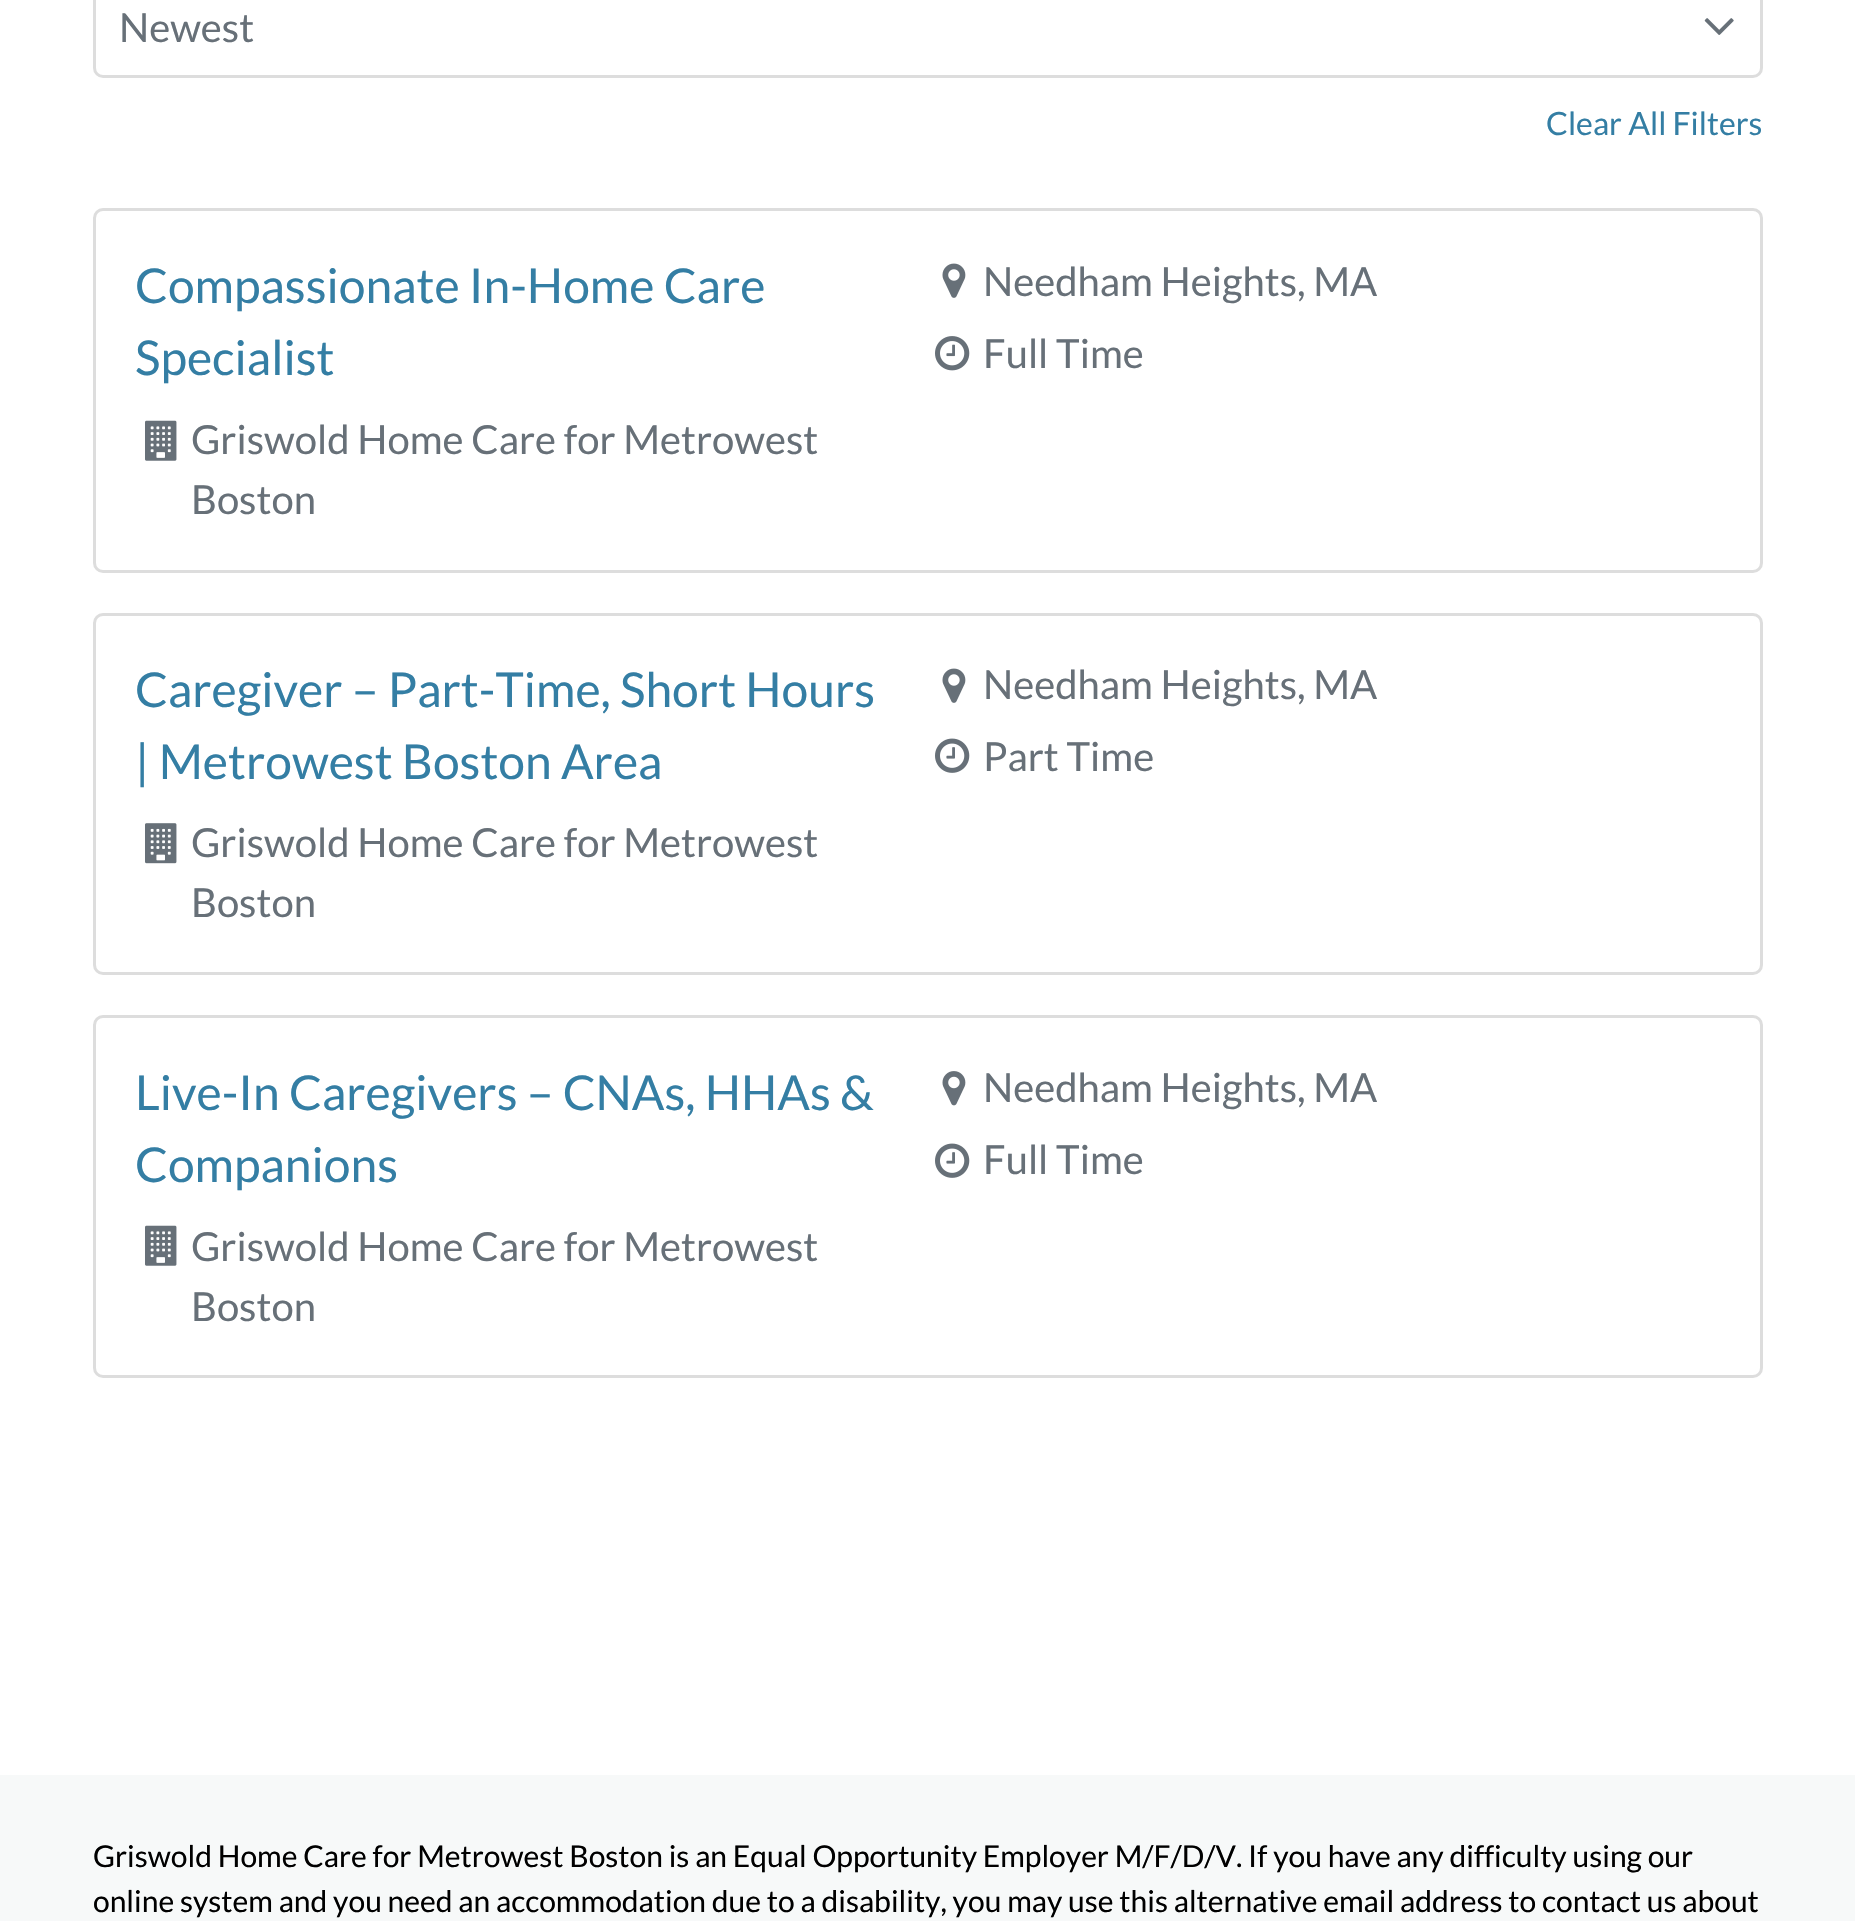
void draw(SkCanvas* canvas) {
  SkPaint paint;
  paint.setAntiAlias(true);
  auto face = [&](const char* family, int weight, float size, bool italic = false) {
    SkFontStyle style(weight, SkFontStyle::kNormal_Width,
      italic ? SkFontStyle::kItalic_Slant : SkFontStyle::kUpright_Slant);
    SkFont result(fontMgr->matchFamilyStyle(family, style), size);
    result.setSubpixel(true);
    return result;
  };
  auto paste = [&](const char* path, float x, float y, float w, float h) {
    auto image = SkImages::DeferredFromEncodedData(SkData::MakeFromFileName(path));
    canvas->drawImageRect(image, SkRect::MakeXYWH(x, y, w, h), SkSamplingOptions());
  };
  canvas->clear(0xffffffff);
  paste("img/1.png", 1704, 18, 30, 17);
  paint.setStroke(true);
  paint.setStrokeWidth(3);
  paint.setColor(0xffdddddd);
  canvas->drawRoundRect(SkRect::MakeXYWH(94.5f, -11.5f, 1667, 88), 8.5f, 8.5f, paint);
  canvas->drawRoundRect(SkRect::MakeXYWH(94.5f, 209.5f, 1667, 362), 8.5f, 8.5f, paint);
  paste("img/2.png", 145, 420, 32, 41);
  paste("img/3.png", 942, 263, 24, 35);
  paste("img/4.png", 935, 336, 35, 35);
  canvas->drawRoundRect(SkRect::MakeXYWH(94.5f, 614.5f, 1667, 359), 8.5f, 8.5f, paint);
  paste("img/5.png", 145, 823, 32, 41);
  paste("img/3.png", 942, 668, 24, 35);
  paste("img/6.png", 935, 738, 35, 35);
  canvas->drawRoundRect(SkRect::MakeXYWH(94.5f, 1016.5f, 1667, 360), 8.5f, 8.5f, paint);
  paste("img/2.png", 145, 1225, 32, 41);
  paste("img/7.png", 942, 1071, 24, 35);
  paste("img/6.png", 935, 1143, 35, 35);
  paint.setStroke(false);
  paint.setColor(0xfff7f9f9);
  canvas->drawRect(SkRect::MakeXYWH(0, 1775, 1855, 146), paint);
  auto f0 = face("Lato", 400, 40);
  paint.setColor(0xff677078);
  canvas->drawString("Newest", 119, 42, f0, paint);
  auto f1 = face("Lato", 400, 32);
  paint.setColor(0xff347ea4);
  canvas->drawString("Clear All Filters", 1546, 135, f1, paint);
  auto f2 = face("Lato", 400, 48);
  canvas->drawString("Compassionate In-Home Care", 135, 303, f2, paint);
  canvas->drawString("Specialist", 135, 375, f2, paint);
  paint.setColor(0xff677078);
  {
    const struct { const char* s; float x, y; } items[] = {
      {"Griswold Home Care for Metrowest", 191, 454},
      {"Boston", 191, 514},
      {"Needham Heights, MA", 983, 296},
      {"Full Time", 983, 368},
    };
    for (auto [s, x, y] : items) {
      canvas->drawString(s, x, y, f0, paint);
    }
  }
  paint.setColor(0xff347ea4);
  canvas->drawString("Caregiver – Part-Time, Short Hours", 135, 707, f2, paint);
  canvas->drawString("| Metrowest Boston Area", 135, 779, f2, paint);
  paint.setColor(0xff677078);
  {
    const struct { const char* s; float x, y; } items[] = {
      {"Griswold Home Care for Metrowest", 191, 857},
      {"Boston", 191, 917},
      {"Needham Heights, MA", 983, 699},
      {"Part Time", 983, 771},
    };
    for (auto [s, x, y] : items) {
      canvas->drawString(s, x, y, f0, paint);
    }
  }
  paint.setColor(0xff347ea4);
  canvas->drawString("Live-In Caregivers – CNAs, HHAs &", 135, 1110, f2, paint);
  canvas->drawString("Companions", 135, 1182, f2, paint);
  paint.setColor(0xff677078);
  {
    const struct { const char* s; float x, y; } items[] = {
      {"Griswold Home Care for Metrowest", 191, 1261},
      {"Boston", 191, 1321},
      {"Needham Heights, MA", 983, 1102},
      {"Full Time", 983, 1174},
    };
    for (auto [s, x, y] : items) {
      canvas->drawString(s, x, y, f0, paint);
    }
  }
  auto f3 = face("Lato", 400, 30);
  paint.setColor(0xff000000);
  canvas->drawString("Griswold Home Care for Metrowest Boston is an Equal Opportunity Employer M/F/D/V. If you have any difficulty using our", 93, 1867, f3, paint);
  canvas->drawString("online system and you need an accommodation due to a disability, you may use this alternative email address to contact us about", 93, 1912, f3, paint);
}
